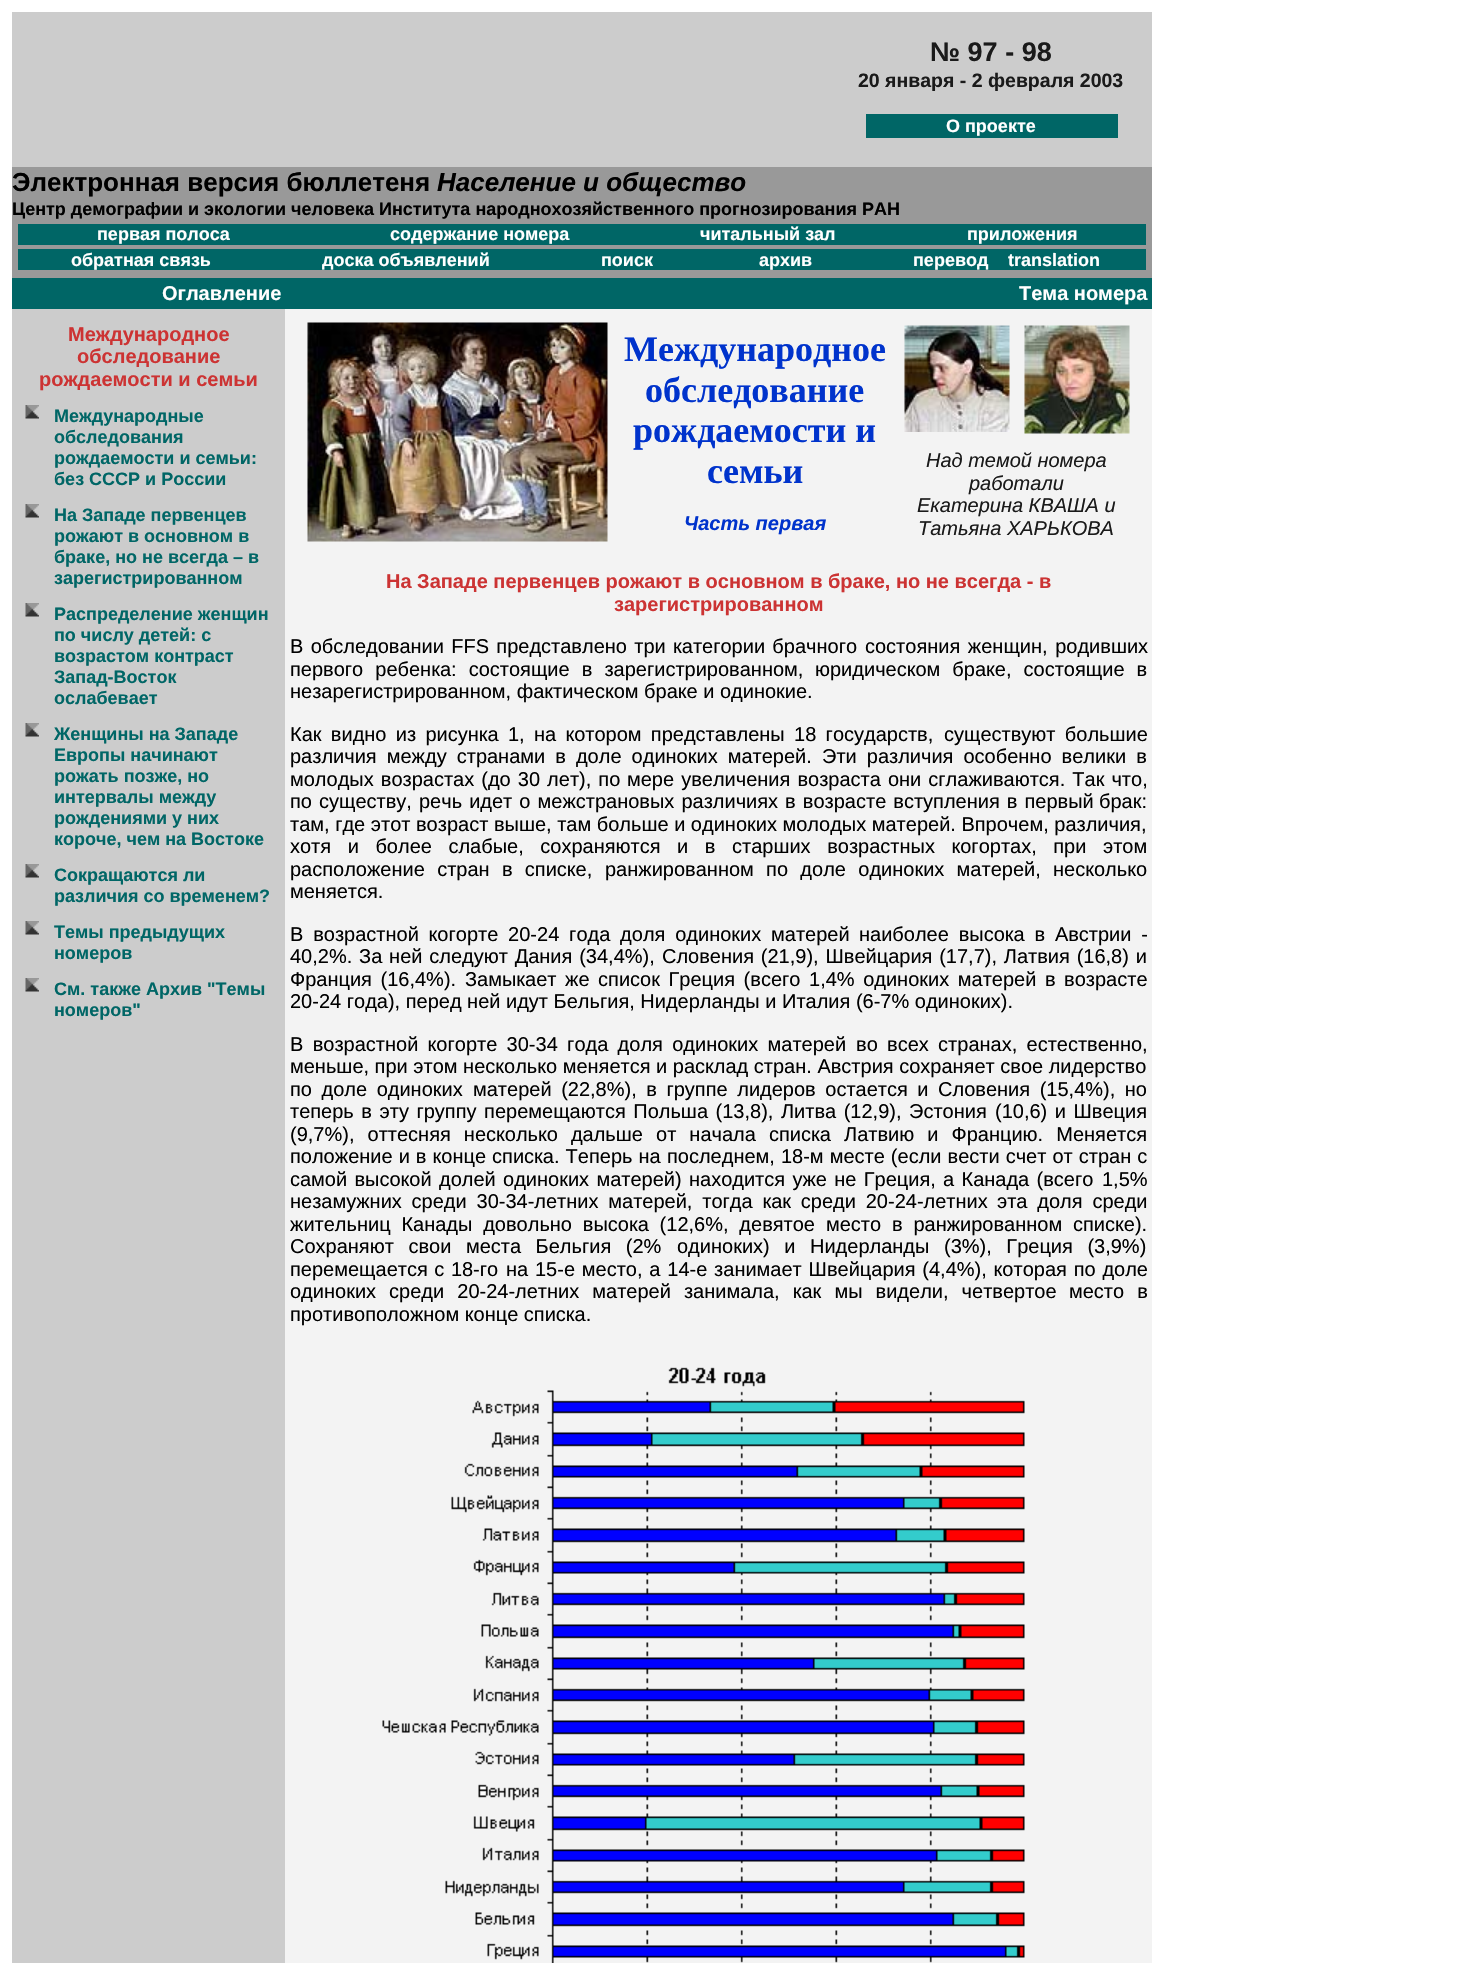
void draw(SkCanvas* canvas) {
  SkPaint paint;
  paint.setAntiAlias(true);
  auto face = [&](const char* family, int weight, float size, bool italic = false) {
    SkFontStyle style(weight, SkFontStyle::kNormal_Width,
      italic ? SkFontStyle::kItalic_Slant : SkFontStyle::kUpright_Slant);
    SkFont result(fontMgr->matchFamilyStyle(family, style), size);
    result.setSubpixel(true);
    return result;
  };
  auto writeSpaced = [&](const char* s, float x, float y, const SkFont& font, const SkPaint& ink, float letter, float word) {
    std::vector<SkGlyphID> glyphs(font.countText(s, strlen(s), SkTextEncoding::kUTF8));
    std::vector<float> xs(glyphs.size());
    font.textToGlyphs(s, strlen(s), SkTextEncoding::kUTF8, glyphs);
    font.getXPos(glyphs, xs, x);
    float extra = 0;
    for (size_t i = 0; i < glyphs.size(); i++) {
      xs[i] += extra;
      extra += letter + word * (glyphs[i] == font.unicharToGlyph(' '));
    }
    canvas->drawTextBlob(SkTextBlob::MakeFromPosHGlyphs(glyphs, xs, y, font), 0, 0, ink);
  };
  auto paste = [&](const char* path, float x, float y, float w, float h) {
    auto image = SkImages::DeferredFromEncodedData(SkData::MakeFromFileName(path));
    canvas->drawImageRect(image, SkRect::MakeXYWH(x, y, w, h), SkSamplingOptions());
  };
  canvas->clear(0xffffffff);
  {
    const struct { float x, y, w, h; SkColor color; } items[] = {
      {12, 12, 1140, 155, 0xffcccccc},
      {866, 114, 252, 24, 0xff006666},
      {12, 167, 1140, 111, 0xff999999},
      {18, 224, 1128, 21, 0xff006666},
      {18, 249, 1128, 21, 0xff006666},
      {285, 309, 867, 1654, 0xfff3f3f3},
      {12, 278, 1140, 31, 0xff006666},
      {12, 309, 273, 1654, 0xffcccccc},
    };
    for (auto [x, y, w, h, color] : items) {
      paint.setColor(color);
      canvas->drawRect(SkRect::MakeXYWH(x, y, w, h), paint);
    }
  }
  paste("img/1.png", 25, 405, 14, 14);
  paste("img/1.png", 25, 504, 14, 14);
  paste("img/1.png", 25, 603, 14, 14);
  paste("img/1.png", 25, 723, 14, 14);
  paste("img/1.png", 25, 864, 14, 14);
  paste("img/1.png", 25, 921, 14, 14);
  paste("img/1.png", 25, 978, 14, 14);
  paste("img/2.png", 307, 322, 301, 220);
  paste("img/3.png", 904, 325, 106, 107);
  paste("img/4.png", 1024, 325, 106, 109);
  paste("img/5.png", 382, 1367, 643, 596);
  auto f0 = face("Liberation Sans", 700, 27);
  paint.setColor(0xff1a1a1a);
  canvas->drawString("№ 97 - 98", 930, 61, f0, paint);
  auto f1 = face("Liberation Sans", 700, 19.5f);
  canvas->drawString("20 января - 2 февраля 2003", 858, 87, f1, paint);
  auto f2 = face("Liberation Sans", 700, 18);
  paint.setColor(0xffffffff);
  canvas->drawString("О проекте", 946, 132, f2, paint);
  auto f3 = face("Liberation Sans", 700, 26);
  paint.setColor(0xff000000);
  canvas->drawString("Электронная версия бюллетеня", 12, 191, f3, paint);
  auto f4 = face("Liberation Sans", 700, 26, true);
  canvas->drawString("Население и общество", 437, 191, f4, paint);
  canvas->drawString("Центр демографии и экологии человека Института народнохозяйственного прогнозирования РАН", 12, 215, f2, paint);
  paint.setColor(0xffffffff);
  {
    const struct { const char* s; float x, y; } items[] = {
      {"первая полоса", 97, 240},
      {"содержание номера", 390, 240},
      {"читальный зал", 700, 240},
      {"приложения", 967, 240},
      {"обратная связь", 71, 266},
      {"доска объявлений", 322, 266},
      {"поиск", 601, 266},
      {"архив", 759, 266},
      {"перевод", 913, 266},
      {"translation", 1008, 266},
    };
    for (auto [s, x, y] : items) {
      canvas->drawString(s, x, y, f2, paint);
    }
  }
  auto f5 = face("Liberation Sans", 700, 20);
  canvas->drawString("Оглавление", 162, 300, f5, paint);
  canvas->drawString("Тема номера", 1019, 300, f5, paint);
  paint.setColor(0xffcc3333);
  {
    const struct { const char* s; float x, y; } items[] = {
      {"Международное", 68, 341},
      {"обследование", 77, 363},
      {"рождаемости и семьи", 39, 386},
    };
    for (auto [s, x, y] : items) {
      canvas->drawString(s, x, y, f5, paint);
    }
  }
  paint.setColor(0xff006666);
  {
    const struct { const char* s; float x, y; } items[] = {
      {"Международные", 54, 422},
      {"обследования", 54, 443},
      {"рождаемости и семьи:", 54, 464},
      {"без СССР и России", 54, 485},
      {"На Западе первенцев", 54, 521},
      {"рожают в основном в", 54, 542},
      {"браке, но не всегда – в", 54, 563},
      {"зарегистрированном", 54, 584},
      {"Распределение женщин", 54, 620},
      {"по числу детей: с", 54, 641},
      {"возрастом контраст", 54, 662},
      {"Запад-Восток", 54, 683},
      {"ослабевает", 54, 704},
      {"Женщины на Западе", 54, 740},
      {"Европы начинают", 54, 761},
      {"рожать позже, но", 54, 782},
      {"интервалы между", 54, 803},
      {"рождениями у них", 54, 824},
      {"короче, чем на Востоке", 54, 845},
      {"Сокращаются ли", 54, 881},
      {"различия со временем?", 54, 902},
      {"Темы предыдущих", 54, 938},
      {"номеров", 54, 959},
      {"См. также Архив \"Темы", 54, 995},
      {"номеров\"", 54, 1016},
    };
    for (auto [s, x, y] : items) {
      canvas->drawString(s, x, y, f2, paint);
    }
  }
  auto f6 = face("Liberation Serif", 700, 36);
  paint.setColor(0xff0033cc);
  {
    const struct { const char* s; float x, y; } items[] = {
      {"Международное", 624, 361},
      {"обследование", 645, 402},
      {"рождаемости и", 633, 442},
      {"семьи", 707, 483},
    };
    for (auto [s, x, y] : items) {
      canvas->drawString(s, x, y, f6, paint);
    }
  }
  auto f7 = face("Liberation Sans", 700, 20, true);
  canvas->drawString("Часть первая", 684, 530, f7, paint);
  auto f8 = face("Liberation Sans", 400, 20, true);
  paint.setColor(0xff1a1a1a);
  {
    const struct { const char* s; float x, y; } items[] = {
      {"Над темой номера", 926, 467},
      {"работали", 969, 490},
      {"Екатерина КВАША и", 917, 512},
      {"Татьяна ХАРЬКОВА", 918, 535},
    };
    for (auto [s, x, y] : items) {
      canvas->drawString(s, x, y, f8, paint);
    }
  }
  paint.setColor(0xffcc3333);
  canvas->drawString("На Западе первенцев рожают в основном в браке, но не всегда - в", 386, 588, f5, paint);
  canvas->drawString("зарегистрированном", 614, 611, f5, paint);
  auto f9 = face("Liberation Sans", 400, 20);
  paint.setColor(0xff000000);
  writeSpaced("В обследовании FFS представлено три категории брачного", 290, 653, f9, paint, 0, 1.75f);
  writeSpaced("состояния женщин, родивших", 865, 653, f9, paint, 0, 2);
  writeSpaced("первого ребенка: состоящие в зарегистрированном,", 290, 676, f9, paint, 0, 6.5f);
  writeSpaced("юридическом браке, состоящие в", 815, 676, f9, paint, 0, 6.5f);
  canvas->drawString("незарегистрированном, фактическом браке и одинокие.", 290, 698, f9, paint);
  writeSpaced("Как видно из рисунка 1, на котором представлены 18 государств,", 290, 741, f9, paint, 0, 3.75f);
  writeSpaced("существуют большие", 944, 741, f9, paint, 0, 3.75f);
  writeSpaced("различия между странами в доле одиноких матерей.", 290, 763, f9, paint, 0, 4.5f);
  writeSpaced("Эти различия особенно велики в", 822, 763, f9, paint, 0, 4.5f);
  {
    const struct { const char* s; float x, y; } items[] = {
      {"молодых возрастах (до 30 лет), по", 290, 786},
      {"мере увеличения возраста они сглаживаются. Так что,", 627, 786},
      {"по существу,", 290, 808},
      {"речь идет о межстрановых различиях в возрасте вступления в первый", 419, 808},
    };
    for (auto [s, x, y] : items) {
      writeSpaced(s, x, y, f9, paint, 0, 1.5f);
    }
  }
  canvas->drawString("брак:", 1099, 808, f9, paint);
  canvas->drawString("там, где этот возраст выше, там больше и одиноких молодых матерей. Впрочем, различия,", 290, 831, f9, paint);
  writeSpaced("хотя и более слабые, сохраняются и в", 290, 853, f9, paint, 0, 11);
  writeSpaced("старших возрастных когортах, при этом", 732, 853, f9, paint, 0, 11);
  writeSpaced("расположение стран в списке,", 290, 876, f9, paint, 0, 6.75f);
  writeSpaced("ранжированном по доле одиноких матерей, несколько", 605, 876, f9, paint, 0, 6.75f);
  canvas->drawString("меняется.", 290, 898, f9, paint);
  writeSpaced("В возрастной когорте 20-24 года доля одиноких матерей", 290, 941, f9, paint, 0, 4.25f);
  writeSpaced("наиболее высока в Австрии -", 859, 941, f9, paint, 0, 4.25f);
  writeSpaced("40,2%. За ней следуют Дания (34,4%),", 290, 963, f9, paint, 0, 1.25f);
  writeSpaced("Словения (21,9), Швейцария (17,7), Латвия (16,8) и", 662, 963, f9, paint, 0, 1.25f);
  writeSpaced("Франция (16,4%).", 290, 986, f9, paint, 0, 3);
  writeSpaced("Замыкает же список Греция (всего 1,4% одиноких матерей в возрасте", 465, 986, f9, paint, 0, 3);
  canvas->drawString("20-24 года), перед ней идут Бельгия, Нидерланды и Италия (6-7% одиноких).", 290, 1008, f9, paint);
  writeSpaced("В возрастной когорте 30-34 года доля одиноких матерей", 290, 1051, f9, paint, 0, 3.75f);
  writeSpaced("во всех странах, естественно,", 856, 1051, f9, paint, 0, 3.75f);
  canvas->drawString("меньше, при этом несколько меняется и расклад стран. Австрия сохраняет свое лидерство", 290, 1073, f9, paint);
  writeSpaced("по доле одиноких", 290, 1096, f9, paint, 0, 4);
  writeSpaced("матерей (22,8%), в группе лидеров остается и Словения (15,4%), но", 473, 1096, f9, paint, 0, 4);
  writeSpaced("теперь в эту группу перемещаются Польша (13,8), Литва (12,9), Эстония", 290, 1118, f9, paint, 0, 2);
  writeSpaced("(10,6) и Швеция", 995, 1118, f9, paint, 0, 2);
  writeSpaced("(9,7%), оттесняя несколько дальше от начала списка", 290, 1141, f9, paint, 0, 7.5f);
  writeSpaced("Латвию и Францию. Меняется", 844, 1141, f9, paint, 0, 7.5f);
  writeSpaced("положение и в конце списка. Теперь на", 290, 1163, f9, paint, 0, 0.5f);
  writeSpaced("последнем, 18-м месте (если вести счет от стран с", 667, 1163, f9, paint, 0, 0.5f);
  writeSpaced("самой высокой", 290, 1186, f9, paint, 0, 1.75f);
  writeSpaced("долей одиноких матерей) находится уже не Греция, а Канада (всего", 439, 1186, f9, paint, 0, 1.75f);
  canvas->drawString("1,5%", 1102, 1186, f9, paint);
  writeSpaced("незамужних среди 30-34-летних матерей, тогда как среди 20-24-летних", 290, 1208, f9, paint, 0, 4.25f);
  writeSpaced("эта доля среди", 997, 1208, f9, paint, 0, 4.25f);
  writeSpaced("жительниц Канады довольно высока (12,6%, девятое", 290, 1231, f9, paint, 0, 5.25f);
  writeSpaced("место в ранжированном списке).", 826, 1231, f9, paint, 0, 5.25f);
  writeSpaced("Сохраняют свои места Бельгия (2%", 290, 1253, f9, paint, 0, 9);
  writeSpaced("одиноких) и Нидерланды (3%), Греция (3,9%)", 677, 1253, f9, paint, 0, 9);
  writeSpaced("перемещается с 18-го", 290, 1276, f9, paint, 0, 1);
  writeSpaced("на 15-е место, а 14-е занимает Швейцария (4,4%), которая по доле", 506, 1276, f9, paint, 0, 1.25f);
  writeSpaced("одиноких среди 20-24-летних матерей занимала, как мы видели, четвертое", 290, 1298, f9, paint, 0, 7.5f);
  writeSpaced("место в", 1069, 1298, f9, paint, 0, 7.5f);
  canvas->drawString("противоположном конце списка.", 290, 1321, f9, paint);
}
